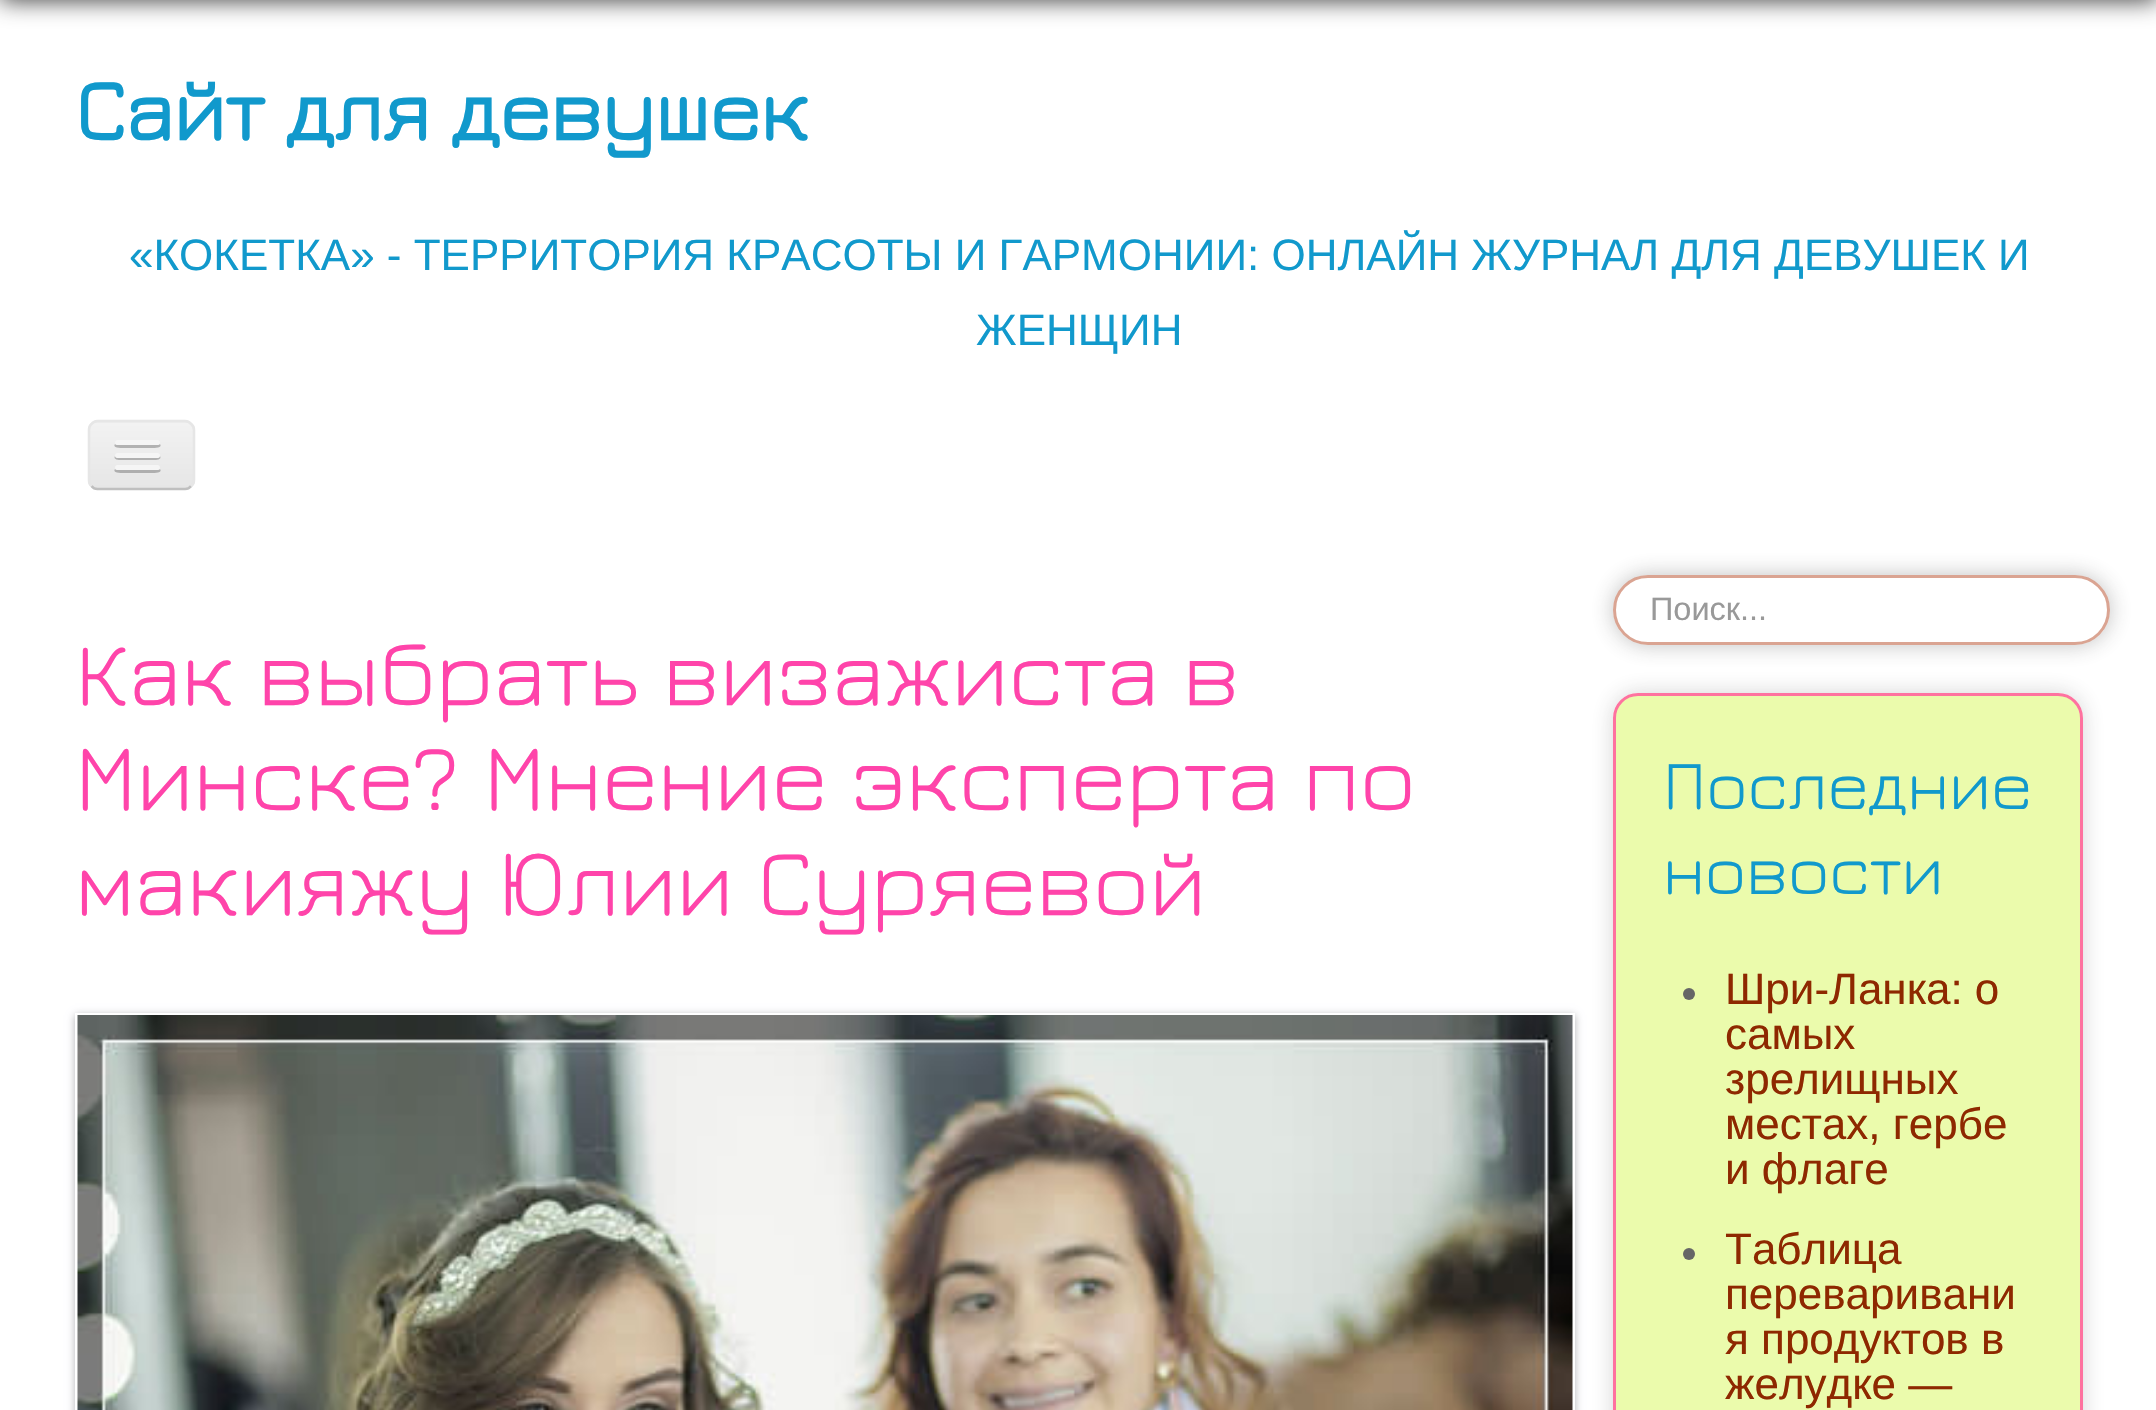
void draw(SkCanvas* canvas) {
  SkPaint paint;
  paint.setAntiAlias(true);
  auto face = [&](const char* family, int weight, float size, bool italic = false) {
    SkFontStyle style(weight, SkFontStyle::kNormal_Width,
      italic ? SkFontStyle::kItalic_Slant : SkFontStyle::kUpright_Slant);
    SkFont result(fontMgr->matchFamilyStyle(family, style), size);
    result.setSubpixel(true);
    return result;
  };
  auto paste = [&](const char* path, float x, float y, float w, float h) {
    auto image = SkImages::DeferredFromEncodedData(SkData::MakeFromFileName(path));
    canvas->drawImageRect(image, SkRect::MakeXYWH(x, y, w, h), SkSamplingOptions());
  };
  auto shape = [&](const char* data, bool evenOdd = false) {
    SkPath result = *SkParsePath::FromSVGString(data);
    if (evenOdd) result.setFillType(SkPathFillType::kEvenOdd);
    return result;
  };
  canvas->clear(0xffffffff);
  paint.setColor(0xcc000000);
  paint.setMaskFilter(SkMaskFilter::MakeBlur(kNormal_SkBlurStyle, 12.5f));
  canvas->drawRect(SkRect::MakeXYWH(0, -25, 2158, 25), paint);
  paint.setMaskFilter(nullptr);
  paint.setColor(0xffededed);
  canvas->drawRoundRect(SkRect::MakeXYWH(88, 420, 107, 70), 10, 10, paint);
  canvas->save();
  canvas->clipPath(shape("M98 420H185C190.5 420 195 424.5 195 430V480C195 485.5 190.5 490 185 490H98C92.5 490 88 485.5 88 480V430C88 424.5 92.5 420 98 420Z"), true);
  {
    const SkColor colors[] = {0xfff2f2f2, 0xffe6e6e6};
    const float stops[] = {0, 1};
    const SkPoint ends[] = {{141, 423}, {141, 488}};
    paint.setShader(SkGradientShader::MakeLinear(ends, colors, stops, 2, SkTileMode::kClamp));
    paint.setAlpha(255);
  }
  canvas->drawRect(SkRect::MakeXYWH(88, 423, 107, 65), paint);
  canvas->restore();
  paint.setStroke(true);
  paint.setStrokeWidth(2.5f);
  paint.setShader(nullptr);
  paint.setColor(0xffbfbfbf);
  canvas->drawPath(shape("M191 486C189.5 488 187.5 489 185 489H97.5C95 489 93 488 91.5 486"), paint);
  paint.setColor(0xffe6e6e6);
  canvas->drawPath(shape("M91.5 486C89.5 484.5 89 482.5 89 480V430C89 427.5 89.5 425.5 91.5 424C93 422 95 421 97.5 421H185C187.5 421 189.5 422 191 424C193 425.5 194 427.5 194 430V480C194 482.5 193 484.5 191 486"), paint);
  paint.setStroke(false);
  paint.setColor(0xffb2b2b2);
  canvas->drawPath(shape("M115 444C112 448 120 448 124 448H151C155 448 163 448 160 444L158 445H117Z"), paint);
  paint.setColor(0xfff5f5f5);
  canvas->drawRoundRect(SkRect::MakeXYWH(115, 440, 45, 5), 2.5f, 2.5f, paint);
  paint.setColor(0xffb0b0b0);
  canvas->drawPath(shape("M115 456C112 461 124 460 124 460H151C151 460 163 461 160 456C159 457 158 458 158 458H118C117 458 116 457 115 456Z"), paint);
  paint.setColor(0xfff5f5f5);
  canvas->drawRoundRect(SkRect::MakeXYWH(115, 453, 45, 5), 2.5f, 2.5f, paint);
  paint.setColor(0xffafafaf);
  canvas->drawPath(shape("M115 469C112 473 120 473 124 473H151C155 473 163 473 160 469L158 470H117Z"), paint);
  paint.setColor(0xfff5f5f5);
  canvas->drawRoundRect(SkRect::MakeXYWH(115, 465, 45, 5), 2.5f, 2.5f, paint);
  canvas->save();
  canvas->clipPath(shape("M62 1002H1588V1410H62ZM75 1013H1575V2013H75Z", true), true);
  paint.setColor(0x4d000009);
  paint.setMaskFilter(SkMaskFilter::MakeBlur(kNormal_SkBlurStyle, 4));
  canvas->drawRect(SkRect::MakeXYWH(75, 1015, 1500, 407), paint);
  paint.setMaskFilter(nullptr);
  canvas->restore();
  paste("img/1.png", 77, 1015, 1496, 395);
  paint.setColor(0x4d323232);
  paint.setMaskFilter(SkMaskFilter::MakeBlur(kNormal_SkBlurStyle, 11));
  canvas->drawRoundRect(SkRect::MakeXYWH(1613, 575, 497, 70), 35, 35, paint);
  paint.setMaskFilter(nullptr);
  paint.setColor(0xffffffff);
  canvas->drawRoundRect(SkRect::MakeXYWH(1613, 575, 497, 70), 35, 35, paint);
  paint.setStroke(true);
  paint.setStrokeWidth(3);
  paint.setColor(0x80b64926);
  canvas->drawRoundRect(SkRect::MakeXYWH(1614.5f, 576.5f, 494, 67), 33.5f, 33.5f, paint);
  canvas->save();
  canvas->clipPath(shape("M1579 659H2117V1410H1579ZM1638 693H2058C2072 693 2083 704 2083 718V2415C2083 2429 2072 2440 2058 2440H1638C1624 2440 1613 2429 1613 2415V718C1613 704 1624 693 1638 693Z", true), true);
  paint.setStroke(false);
  paint.setColor(0x33323232);
  paint.setMaskFilter(SkMaskFilter::MakeBlur(kNormal_SkBlurStyle, 11));
  canvas->drawRoundRect(SkRect::MakeXYWH(1613, 693, 470, 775), 25, 25, paint);
  paint.setMaskFilter(nullptr);
  canvas->restore();
  paint.setColor(0x80d8f75a);
  canvas->drawRoundRect(SkRect::MakeXYWH(1614.5f, 694.5f, 467, 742), 23.5f, 23.5f, paint);
  paint.setStroke(true);
  paint.setColor(0xfffe729f);
  canvas->drawRoundRect(SkRect::MakeXYWH(1614.5f, 694.5f, 467, 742), 23.5f, 23.5f, paint);
  paint.setStroke(false);
  paint.setColor(0xff666666);
  canvas->drawCircle(1689, 994, 6, paint);
  canvas->drawCircle(1689, 1254, 6, paint);
  auto f0 = face("Jura", 700, 86.5f);
  paint.setColor(0xff1199cc);
  canvas->drawString("Сайт для девушек", 75, 140, f0, paint);
  auto f1 = face("Liberation Sans", 400, 44);
  canvas->drawString("«КОКЕТКА» - ТЕРРИТОРИЯ КРАСОТЫ И ГАРМОНИИ: ОНЛАЙН ЖУРНАЛ ДЛЯ ДЕВУШЕК И", 129, 270, f1, paint);
  canvas->drawString("ЖЕНЩИН", 976, 345, f1, paint);
  auto f2 = face("Jura", 300, 95);
  paint.setColor(0xffff44aa);
  {
    const struct { const char* s; float x, y; } items[] = {
      {"Как выбрать визажиста в", 75, 705},
      {"Минске? Мнение эксперта по", 75, 810},
      {"макияжу Юлии Суряевой", 75, 915},
    };
    for (auto [s, x, y] : items) {
      canvas->drawString(s, x, y, f2, paint);
    }
  }
  auto f3 = face("Liberation Sans", 400, 32.5f);
  paint.setColor(0xff999999);
  canvas->drawString("Поиск...", 1650, 620, f3, paint);
  auto f4 = face("Jura", 300, 70);
  paint.setColor(0xff1199cc);
  canvas->drawString("Последние", 1663, 809, f4, paint);
  canvas->drawString("новости", 1663, 894, f4, paint);
  paint.setColor(0xff8e2800);
  {
    const struct { const char* s; float x, y; } items[] = {
      {"Шри-Ланка: о", 1725, 1004},
      {"самых", 1725, 1049},
      {"зрелищных", 1725, 1094},
      {"местах, гербе", 1725, 1139},
      {"и флаге", 1725, 1184},
      {"Таблица", 1725, 1264},
      {"переваривани", 1725, 1309},
      {"я продуктов в", 1725, 1354},
      {"желудке —", 1725, 1399},
    };
    for (auto [s, x, y] : items) {
      canvas->drawString(s, x, y, f1, paint);
    }
  }
}
